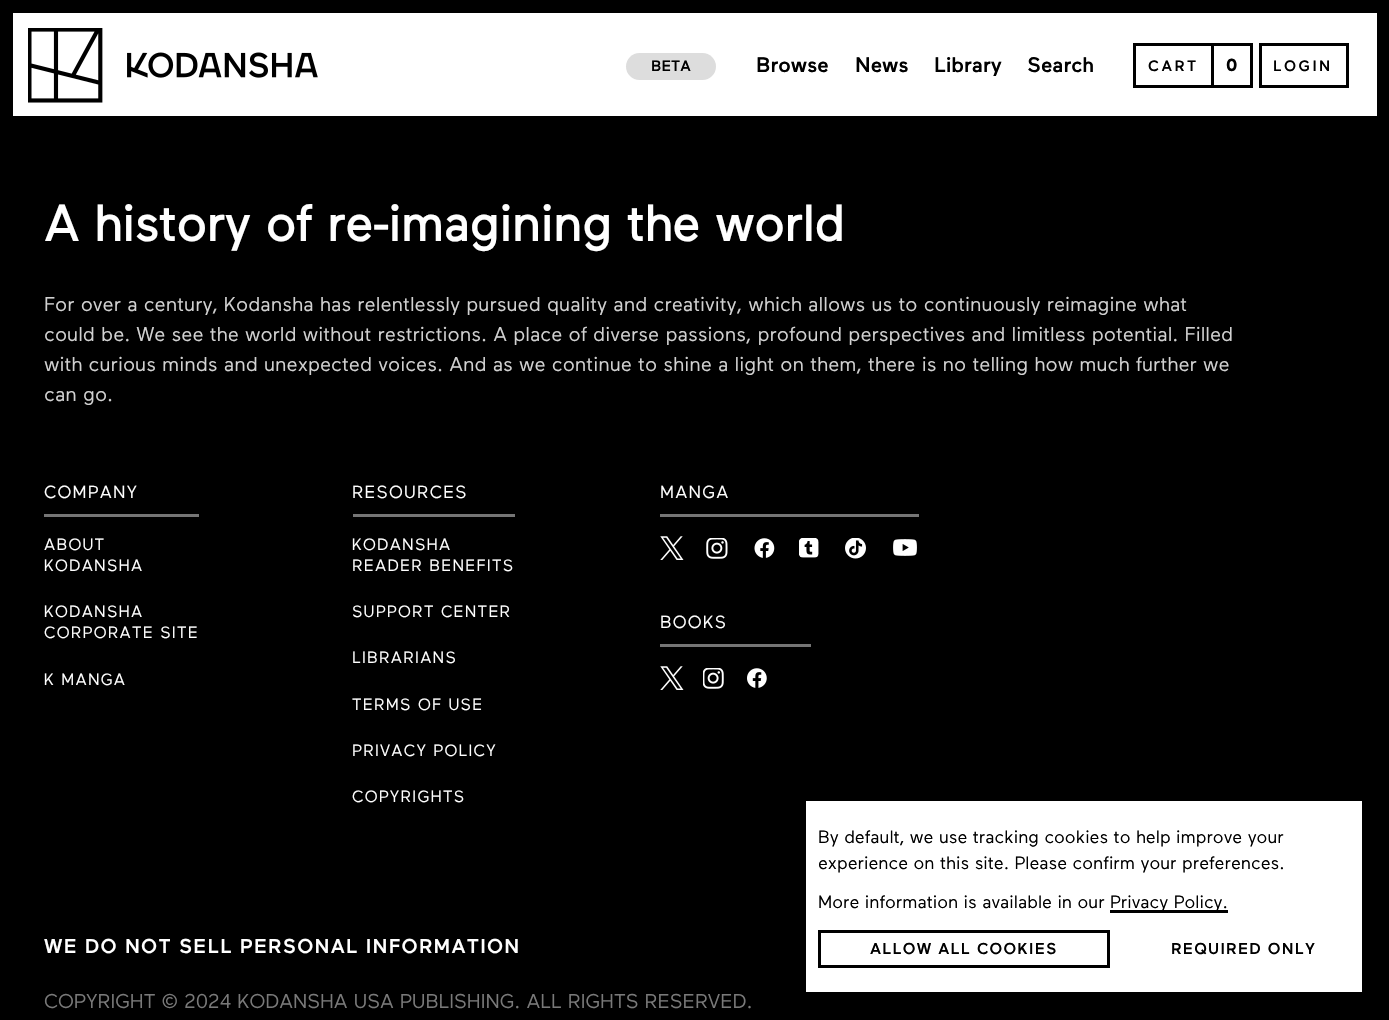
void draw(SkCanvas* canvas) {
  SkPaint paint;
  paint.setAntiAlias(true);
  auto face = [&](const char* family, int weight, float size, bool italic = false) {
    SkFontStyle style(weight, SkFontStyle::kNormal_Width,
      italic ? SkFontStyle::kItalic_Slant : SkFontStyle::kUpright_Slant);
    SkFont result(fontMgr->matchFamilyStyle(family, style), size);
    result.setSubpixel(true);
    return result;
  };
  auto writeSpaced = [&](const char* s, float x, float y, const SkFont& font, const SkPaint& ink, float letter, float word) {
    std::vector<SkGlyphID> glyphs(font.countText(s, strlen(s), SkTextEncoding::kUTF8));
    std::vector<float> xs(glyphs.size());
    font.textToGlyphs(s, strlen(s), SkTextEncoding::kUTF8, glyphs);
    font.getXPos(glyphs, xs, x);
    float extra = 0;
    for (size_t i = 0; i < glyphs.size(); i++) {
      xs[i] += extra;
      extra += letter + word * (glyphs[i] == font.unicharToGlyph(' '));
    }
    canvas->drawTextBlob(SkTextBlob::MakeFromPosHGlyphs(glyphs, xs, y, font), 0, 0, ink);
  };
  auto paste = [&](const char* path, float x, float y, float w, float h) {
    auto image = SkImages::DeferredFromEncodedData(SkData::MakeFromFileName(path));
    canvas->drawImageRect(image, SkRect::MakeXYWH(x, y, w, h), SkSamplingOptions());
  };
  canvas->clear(0xff000000);
  paint.setColor(0xffffffff);
  canvas->drawRect(SkRect::MakeXYWH(13, 13, 1364, 103), paint);
  paste("img/1.png", 28, 28, 290, 75);
  paint.setColor(0xffdddddd);
  canvas->drawRoundRect(SkRect::MakeXYWH(626, 53, 90, 27), 13.5f, 13.5f, paint);
  paint.setStroke(true);
  paint.setStrokeWidth(3);
  paint.setColor(0xff000000);
  canvas->drawRect(SkRect::MakeXYWH(1134.5f, 44.5f, 78, 42), paint);
  paint.setStroke(false);
  {
    const struct { float x, y, w, h; SkColor color; } items[] = {
      {1214, 43, 39, 3, 0xff000000},
      {1250, 43, 3, 45, 0xff000000},
      {1214, 85, 39, 3, 0xff000000},
    };
    for (auto [x, y, w, h, color] : items) {
      paint.setColor(color);
      canvas->drawRect(SkRect::MakeXYWH(x, y, w, h), paint);
    }
  }
  paint.setStroke(true);
  canvas->drawRect(SkRect::MakeXYWH(1260.5f, 44.5f, 87, 42), paint);
  paint.setStroke(false);
  {
    const struct { float x, y, w, h; SkColor color; } items[] = {
      {44, 514, 155, 3, 0xff757575},
      {353, 514, 162, 3, 0xff757575},
      {660, 514, 259, 3, 0xff757575},
    };
    for (auto [x, y, w, h, color] : items) {
      paint.setColor(color);
      canvas->drawRect(SkRect::MakeXYWH(x, y, w, h), paint);
    }
  }
  paste("img/2.png", 660, 536, 24, 24);
  paste("img/3.png", 706, 538, 22, 21);
  paste("img/4.png", 754, 538, 21, 20);
  paste("img/5.png", 799, 538, 20, 20);
  paste("img/6.png", 845, 538, 21, 21);
  paste("img/7.png", 893, 539, 24, 17);
  canvas->drawRect(SkRect::MakeXYWH(660, 644, 151, 3), paint);
  paste("img/2.png", 660, 666, 24, 24);
  paste("img/8.png", 703, 668, 21, 21);
  paste("img/9.png", 747, 668, 20, 20);
  paint.setColor(0xffffffff);
  canvas->drawRect(SkRect::MakeXYWH(806, 801, 556, 191), paint);
  paint.setColor(0xff000000);
  canvas->drawRect(SkRect::MakeXYWH(1110, 910, 118, 3), paint);
  paint.setStroke(true);
  canvas->drawRect(SkRect::MakeXYWH(819.5f, 931.5f, 289, 35), paint);
  auto f0 = face("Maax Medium", 500, 15);
  paint.setStroke(false);
  canvas->drawString("BETA", 651, 71, f0, paint);
  auto f1 = face("Maax Medium", 500, 21);
  {
    const struct { const char* s; float x, y; } items[] = {
      {"Browse", 756, 72},
      {"News", 855, 72},
      {"Library", 934, 72},
      {"Search", 1027, 72},
    };
    for (auto [s, x, y] : items) {
      canvas->drawString(s, x, y, f1, paint);
    }
  }
  writeSpaced("CART", 1148, 71, f0, paint, 2.5f, 0);
  auto f2 = face("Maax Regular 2", 700, 17.5f);
  canvas->drawString("0", 1226, 71, f2, paint);
  writeSpaced("LOGIN", 1273, 71, f0, paint, 2.5f, 0);
  auto f3 = face("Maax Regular", 700, 50);
  paint.setColor(0xffffffff);
  canvas->drawString("A history of re-imagining the world", 44, 241, f3, paint);
  auto f4 = face("Maax Regular", 400, 20);
  paint.setColor(0xffd1d1d1);
  {
    const struct { const char* s; float x, y; } items[] = {
      {"For over a century, Kodansha has relentlessly pursued quality and creativity, which allows us to continuously reimagine what", 44, 311},
      {"could be. We see the world without restrictions. A place of diverse passions, profound perspectives and limitless potential. Filled", 44, 341},
      {"with curious minds and unexpected voices. And as we continue to shine a light on them, there is no telling how much further we", 44, 371},
      {"can go.", 44, 401},
    };
    for (auto [s, x, y] : items) {
      canvas->drawString(s, x, y, f4, paint);
    }
  }
  auto f5 = face("Maax Regular", 400, 17.5f);
  paint.setColor(0xffffffff);
  writeSpaced("COMPANY", 44, 498, f5, paint, 1.25f, 0);
  auto f6 = face("Maax Regular", 400, 16.25f);
  {
    const struct { const char* s; float x, y; } items[] = {
      {"ABOUT", 44, 550},
      {"KODANSHA", 44, 571},
      {"KODANSHA", 44, 617},
      {"CORPORATE SITE", 44, 638},
      {"K MANGA", 44, 685},
    };
    for (auto [s, x, y] : items) {
      writeSpaced(s, x, y, f6, paint, 1.25f, 0);
    }
  }
  writeSpaced("RESOURCES", 352, 498, f5, paint, 1.25f, 0);
  {
    const struct { const char* s; float x, y; } items[] = {
      {"KODANSHA", 352, 550},
      {"READER BENEFITS", 352, 571},
      {"SUPPORT CENTER", 352, 617},
      {"LIBRARIANS", 352, 663},
      {"TERMS OF USE", 352, 710},
      {"PRIVACY POLICY", 352, 756},
      {"COPYRIGHTS", 352, 802},
    };
    for (auto [s, x, y] : items) {
      writeSpaced(s, x, y, f6, paint, 1.25f, 0);
    }
  }
  writeSpaced("MANGA", 660, 498, f5, paint, 1.25f, 0);
  writeSpaced("BOOKS", 660, 628, f5, paint, 1.25f, 0);
  auto f7 = face("Maax Medium", 500, 20);
  writeSpaced("WE DO NOT SELL PERSONAL INFORMATION", 44, 953, f7, paint, 1.25f, 0);
  paint.setColor(0xff797979);
  canvas->drawString("COPYRIGHT © 2024 KODANSHA USA PUBLISHING. ALL RIGHTS RESERVED.", 44, 1008, f4, paint);
  auto f8 = face("Maax Regular", 400, 17.75f);
  paint.setColor(0xff000000);
  {
    const struct { const char* s; float x, y; } items[] = {
      {"By default, we use tracking cookies to help improve your", 818, 843},
      {"experience on this site. Please confirm your preferences.", 818, 869},
      {"More information is available in our", 818, 908},
      {"Privacy Policy.", 1110, 908},
    };
    for (auto [s, x, y] : items) {
      canvas->drawString(s, x, y, f8, paint);
    }
  }
  auto f9 = face("Maax Medium", 500, 15.75f);
  writeSpaced("ALLOW ALL COOKIES", 870, 954, f9, paint, 1.25f, 0);
  writeSpaced("REQUIRED ONLY", 1171, 954, f9, paint, 1.25f, 0);
}
